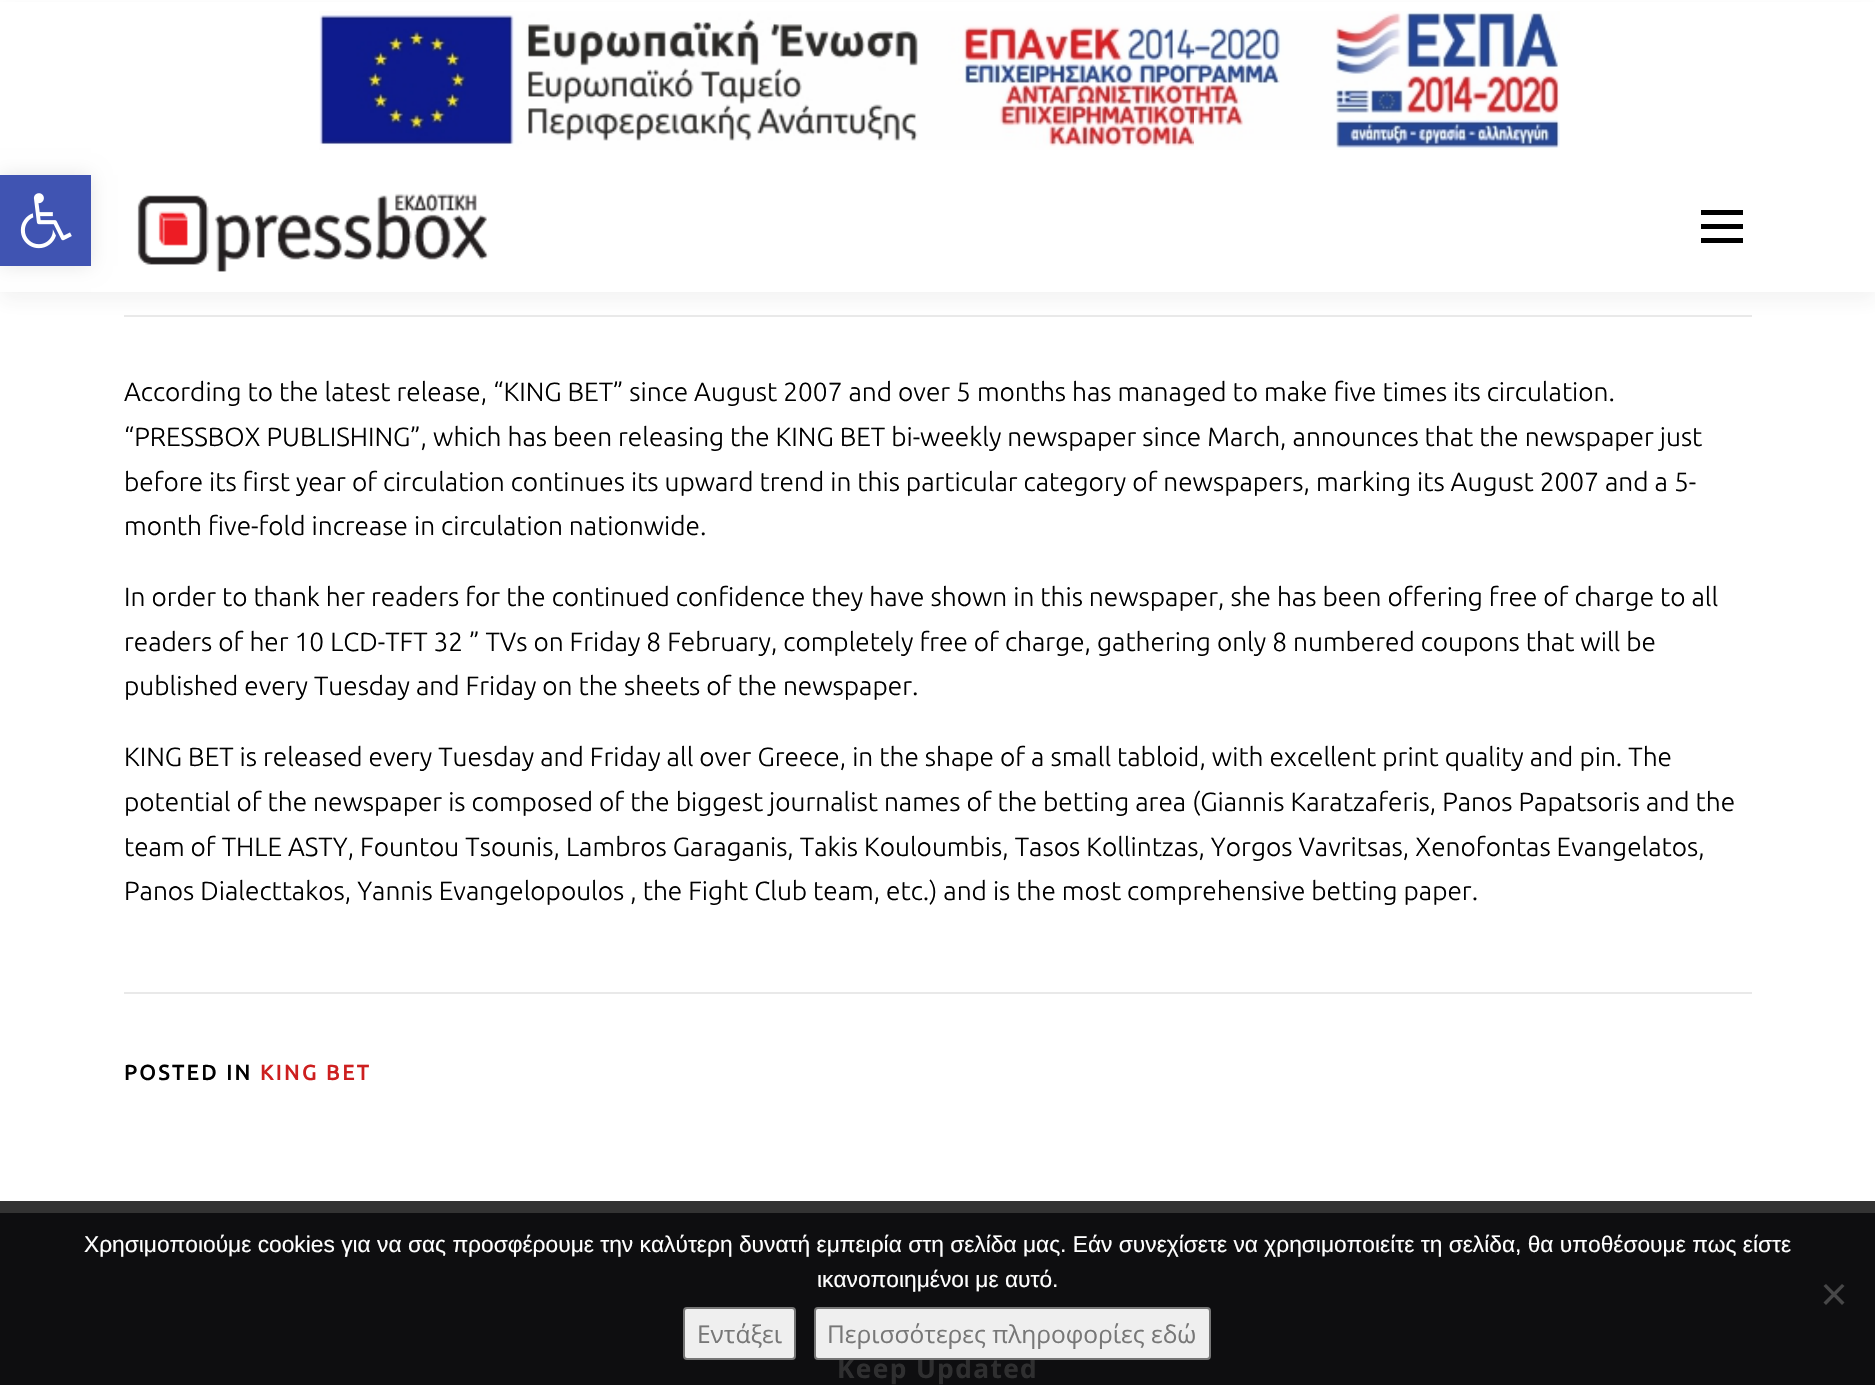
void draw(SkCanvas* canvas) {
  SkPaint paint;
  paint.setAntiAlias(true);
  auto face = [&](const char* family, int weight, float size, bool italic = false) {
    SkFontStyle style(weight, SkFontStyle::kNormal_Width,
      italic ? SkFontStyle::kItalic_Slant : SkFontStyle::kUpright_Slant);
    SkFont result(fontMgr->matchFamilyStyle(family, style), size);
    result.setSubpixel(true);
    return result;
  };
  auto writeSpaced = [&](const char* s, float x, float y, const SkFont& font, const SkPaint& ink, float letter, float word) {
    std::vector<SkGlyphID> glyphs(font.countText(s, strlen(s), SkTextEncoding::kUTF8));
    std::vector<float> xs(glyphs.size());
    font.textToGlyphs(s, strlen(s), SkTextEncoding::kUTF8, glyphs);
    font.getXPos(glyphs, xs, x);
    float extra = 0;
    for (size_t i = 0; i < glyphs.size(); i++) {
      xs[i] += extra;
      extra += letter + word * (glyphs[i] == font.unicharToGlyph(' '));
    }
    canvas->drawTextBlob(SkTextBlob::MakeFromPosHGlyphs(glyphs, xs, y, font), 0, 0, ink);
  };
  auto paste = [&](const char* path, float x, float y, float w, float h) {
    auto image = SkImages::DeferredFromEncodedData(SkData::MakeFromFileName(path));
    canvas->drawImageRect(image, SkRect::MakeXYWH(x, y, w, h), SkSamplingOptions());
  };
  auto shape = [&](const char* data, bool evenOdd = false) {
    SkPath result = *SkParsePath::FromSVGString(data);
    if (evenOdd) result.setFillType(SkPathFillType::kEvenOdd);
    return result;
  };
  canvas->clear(0xffffffff);
  paint.setColor(0xff333333);
  canvas->drawRect(SkRect::MakeXYWH(0, 1201, 1875, 12), paint);
  paint.setColor(0xffe9e9e9);
  canvas->drawRect(SkRect::MakeXYWH(124, 315, 1628, 2), paint);
  paint.setColor(0x0f323232);
  paint.setMaskFilter(SkMaskFilter::MakeBlur(kNormal_SkBlurStyle, 9));
  canvas->drawRect(SkRect::MakeXYWH(0, 9, 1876, 292), paint);
  paint.setMaskFilter(nullptr);
  paint.setColor(0xffffffff);
  canvas->drawRect(SkRect::MakeXYWH(0, 2, 1875, 290), paint);
  paint.setColor(0x1a000000);
  paint.setMaskFilter(SkMaskFilter::MakeBlur(kNormal_SkBlurStyle, 9));
  canvas->drawRect(SkRect::MakeXYWH(0, 175, 91, 91), paint);
  paint.setMaskFilter(nullptr);
  paint.setColor(0xff4054b2);
  canvas->drawRect(SkRect::MakeXYWH(0, 175, 91, 91), paint);
  paste("img/1.png", 20, 193, 52, 56);
  paste("img/2.png", 319, 11, 1241, 139);
  paste("img/3.png", 137, 193, 352, 79);
  {
    const struct { float x, y, w, h; SkColor color; } items[] = {
      {1701, 224, 42, 5, 0xff000000},
      {1701, 210, 42, 5, 0xff000000},
      {1701, 238, 42, 5, 0xff000000},
      {124, 992, 1628, 2, 0xffe9e9e9},
      {0, 1213, 1875, 172, 0xff0e0e10},
    };
    for (auto [x, y, w, h, color] : items) {
      paint.setColor(color);
      canvas->drawRect(SkRect::MakeXYWH(x, y, w, h), paint);
    }
  }
  paint.setColor(0xff474748);
  canvas->drawPath(shape("M1842 1284L1844.5 1286L1826 1305L1823.5 1302.5Z"), paint);
  canvas->drawPath(shape("M1823.5 1286L1826 1284L1844.5 1302.5L1842 1305Z"), paint);
  paint.setColor(0xffefefef);
  canvas->drawRoundRect(SkRect::MakeXYWH(684, 1308, 111, 51), 3, 3, paint);
  paint.setStroke(true);
  paint.setStrokeWidth(2);
  paint.setColor(0xff767676);
  canvas->drawRoundRect(SkRect::MakeXYWH(684, 1308, 111, 51), 3, 3, paint);
  auto f0 = face("Ubuntu", 300, 26.25f);
  paint.setStroke(false);
  paint.setColor(0xff000000);
  {
    const struct { const char* s; float x, y; } items[] = {
      {"According to the latest release, “KING BET” since August 2007 and over 5 months has managed to make five times its circulation.", 124, 401},
      {"“PRESSBOX PUBLISHING”, which has been releasing the KING BET bi-weekly newspaper since March, announces that the newspaper just", 124, 446},
      {"before its first year of circulation continues its upward trend in this particular category of newspapers, marking its August 2007 and a 5-", 124, 491},
      {"month five-fold increase in circulation nationwide.", 124, 535},
      {"In order to thank her readers for the continued confidence they have shown in this newspaper, she has been offering free of charge to all", 124, 606},
      {"readers of her 10 LCD-TFT 32 ” TVs on Friday 8 February, completely free of charge, gathering only 8 numbered coupons that will be", 124, 651},
      {"published every Tuesday and Friday on the sheets of the newspaper.", 124, 695},
      {"KING BET is released every Tuesday and Friday all over Greece, in the shape of a small tabloid, with excellent print quality and pin. The", 124, 766},
      {"potential of the newspaper is composed of the biggest journalist names of the betting area (Giannis Karatzaferis, Panos Papatsoris and the", 124, 811},
      {"team of THLE ASTY, Fountou Tsounis, Lambros Garaganis, Takis Kouloumbis, Tasos Kollintzas, Yorgos Vavritsas, Xenofontas Evangelatos,", 124, 856},
      {"Panos Dialecttakos, Yannis Evangelopoulos , the Fight Club team, etc.) and is the most comprehensive betting paper.", 124, 900},
    };
    for (auto [s, x, y] : items) {
      canvas->drawString(s, x, y, f0, paint);
    }
  }
  auto f1 = face("Ubuntu", 700, 21);
  writeSpaced("POSTED IN", 124, 1080, f1, paint, 2.6f, 0);
  paint.setColor(0xffcd1f1f);
  writeSpaced("KING BET", 260, 1080, f1, paint, 2.6f, 0);
  auto f2 = face("Open Sans", 700, 26.25f);
  paint.setColor(0xff2f2f30);
  writeSpaced("Keep Updated", 837, 1378, f2, paint, 1.4f, 0);
  auto f3 = face("Liberation Sans", 400, 22.75f);
  paint.setColor(0xffffffff);
  canvas->drawString("Χρησιμοποιούμε cookies για να σας προσφέρουμε την καλύτερη δυνατή εμπειρία στη σελίδα μας. Εάν συνεχίσετε να χρησιμοποιείτε τη σελίδα, θα υποθέσουμε πως είστε", 84, 1252, f3, paint);
  canvas->drawString("ικανοποιημένοι με αυτό.", 817, 1287, f3, paint);
  auto f4 = face("Open Sans", 400, 24.5f);
  paint.setColor(0xff777777);
  canvas->drawString("Εντάξει", 697, 1343, f4, paint);
  paint.setColor(0xffefefef);
  canvas->drawRoundRect(SkRect::MakeXYWH(815, 1308, 395, 51), 3, 3, paint);
  paint.setStroke(true);
  paint.setColor(0xff767676);
  canvas->drawRoundRect(SkRect::MakeXYWH(815, 1308, 395, 51), 3, 3, paint);
  paint.setStroke(false);
  paint.setColor(0xff777777);
  canvas->drawString("Περισσότερες πληροφορίες εδώ", 827, 1343, f4, paint);
}
